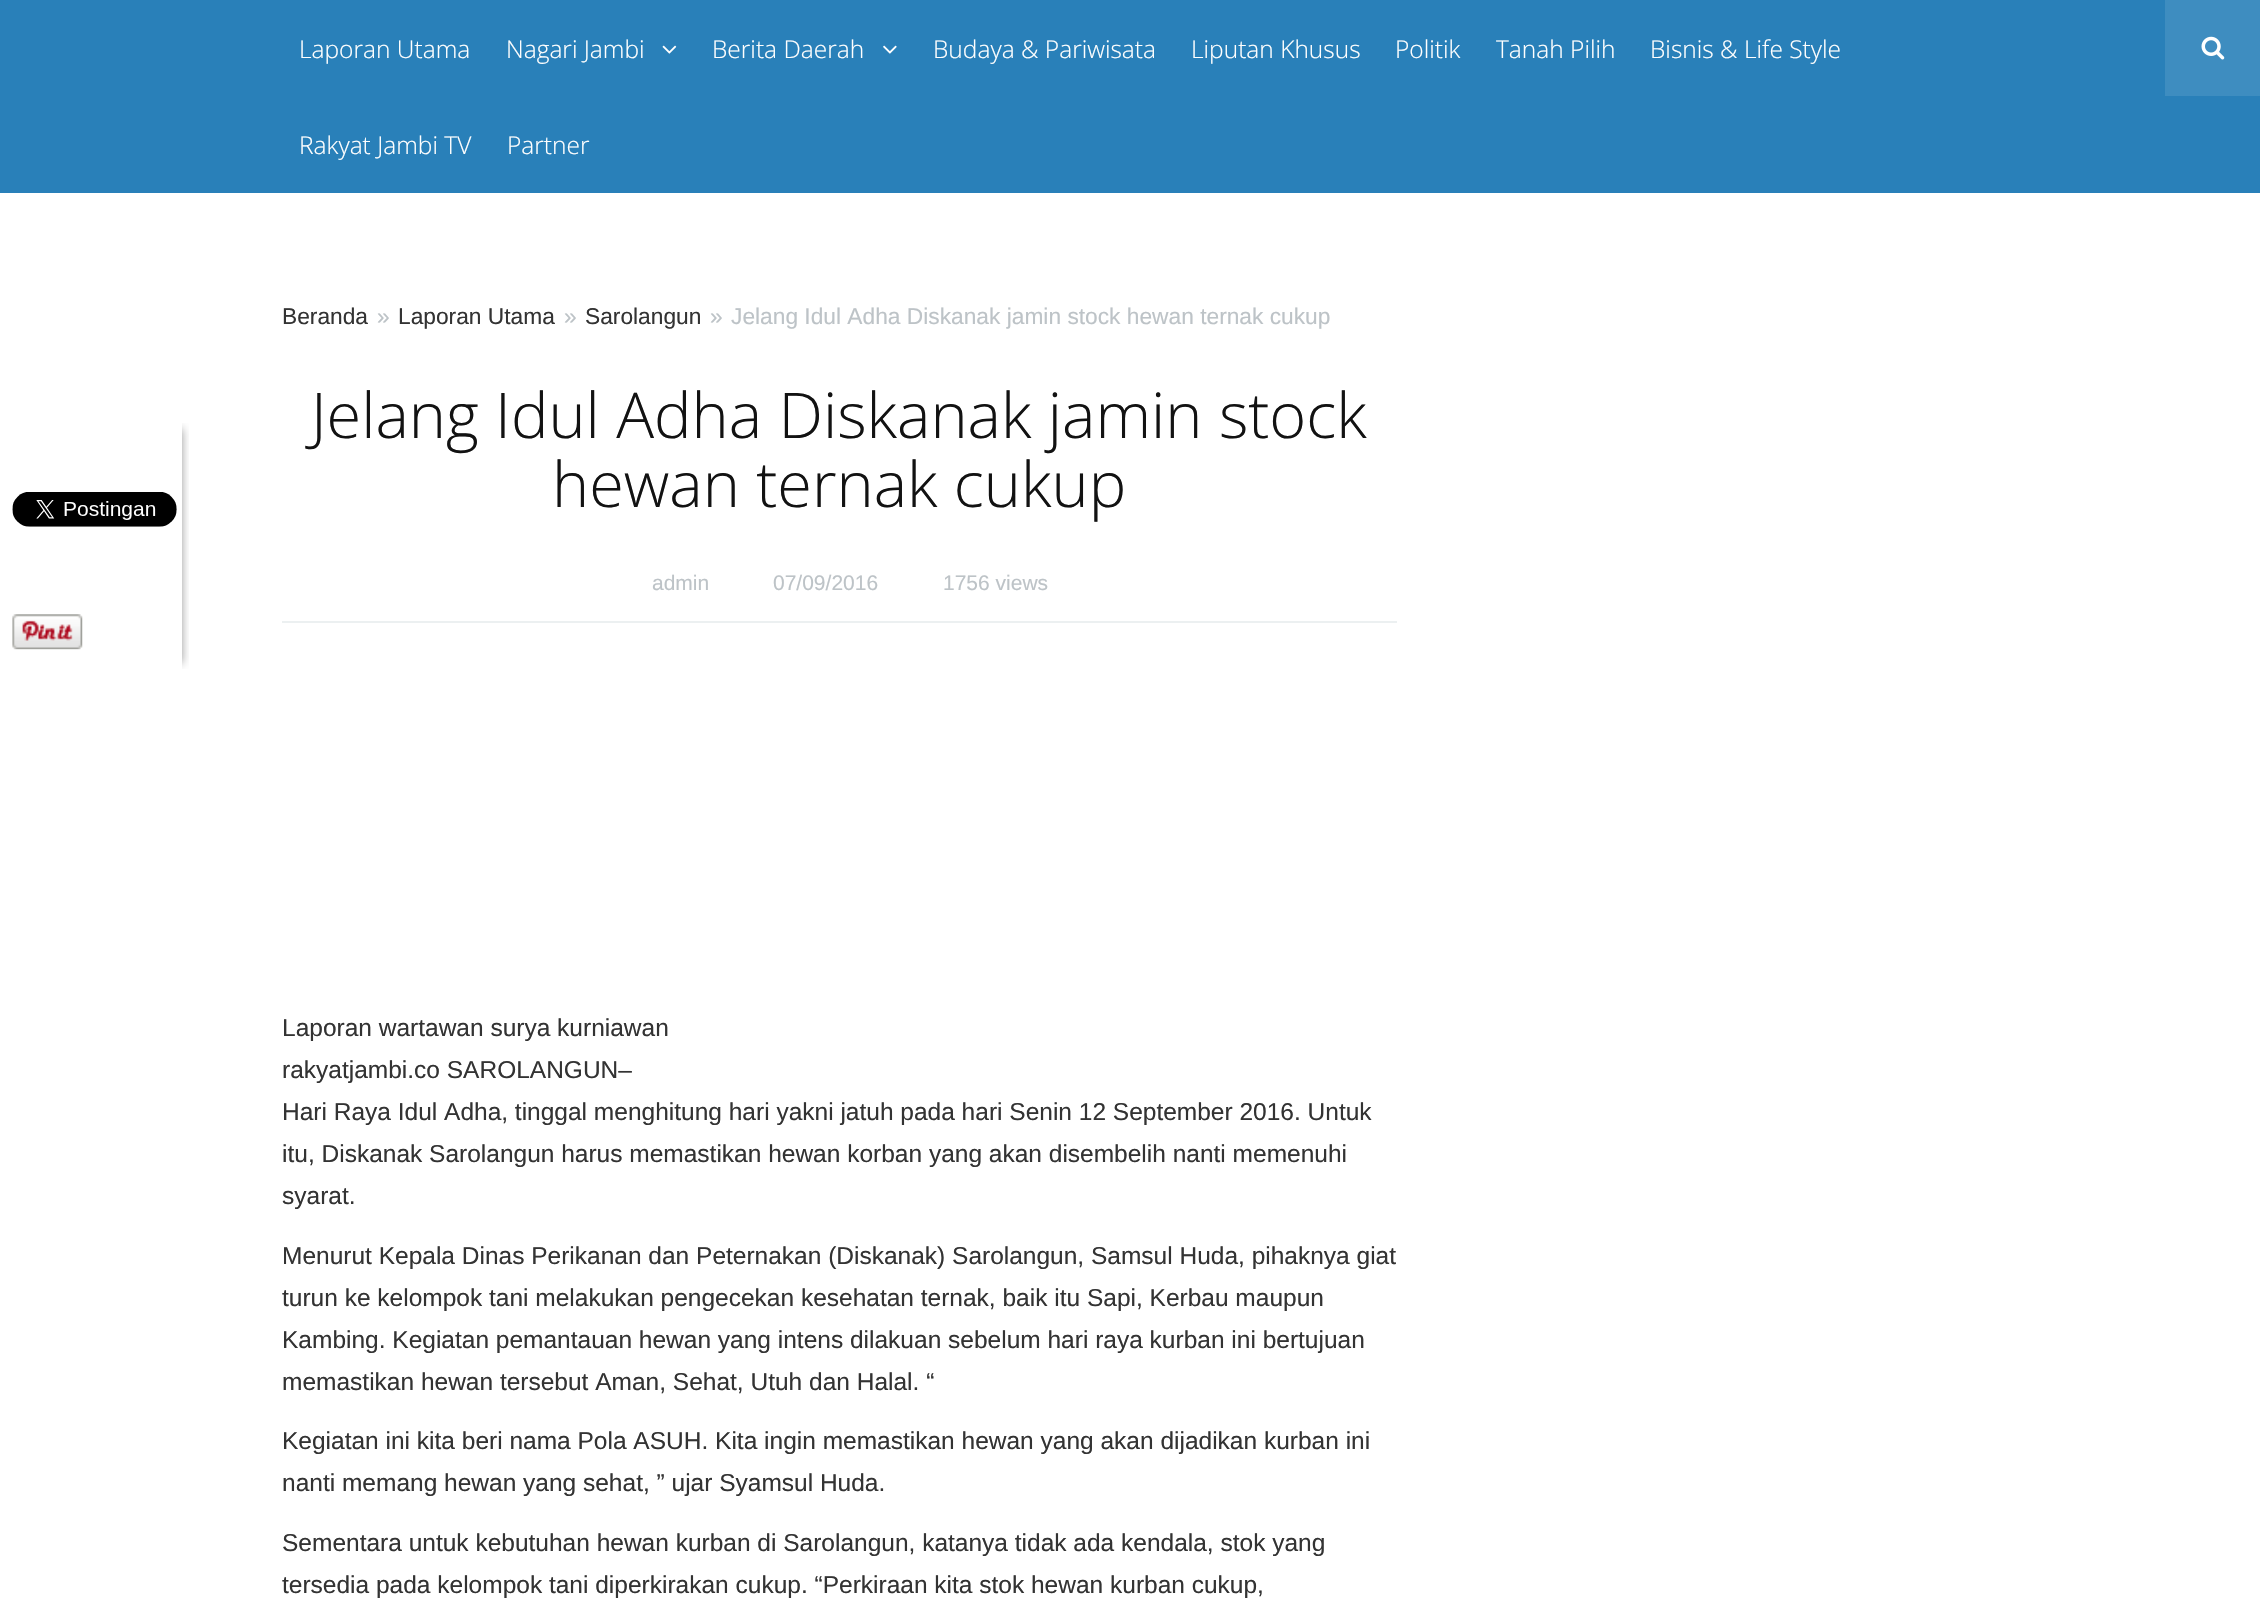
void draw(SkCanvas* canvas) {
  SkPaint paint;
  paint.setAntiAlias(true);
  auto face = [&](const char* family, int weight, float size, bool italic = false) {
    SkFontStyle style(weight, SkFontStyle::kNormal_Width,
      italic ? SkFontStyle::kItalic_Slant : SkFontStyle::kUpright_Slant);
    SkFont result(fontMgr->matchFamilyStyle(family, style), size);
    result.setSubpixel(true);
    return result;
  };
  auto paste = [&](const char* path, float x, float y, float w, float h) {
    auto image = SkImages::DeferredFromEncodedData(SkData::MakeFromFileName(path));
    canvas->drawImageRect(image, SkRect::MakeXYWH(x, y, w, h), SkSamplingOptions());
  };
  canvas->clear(0xff2980b9);
  paste("img/1.png", 662, 45, 15, 9);
  paste("img/2.png", 883, 45, 14, 9);
  paint.setColor(0xff3e8dc0);
  canvas->drawRect(SkRect::MakeXYWH(2165, 0, 95, 96), paint);
  paste("img/3.png", 2201, 36, 24, 24);
  paint.setColor(0xffffffff);
  canvas->drawRect(SkRect::MakeXYWH(0, 193, 2260, 1413), paint);
  paint.setColor(0xffecf0f1);
  canvas->drawRect(SkRect::MakeXYWH(282, 621, 1115, 2), paint);
  canvas->save();
  canvas->clipRect(SkRect::MakeXYWH(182, 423, 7, 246));
  paint.setColor(0x66000000);
  paint.setMaskFilter(SkMaskFilter::MakeBlur(kNormal_SkBlurStyle, 4.5f));
  canvas->drawRect(SkRect::MakeXYWH(18, 429, 164, 234), paint);
  paint.setMaskFilter(nullptr);
  canvas->restore();
  paste("img/4.png", 12, 492, 165, 35);
  paste("img/5.png", 12, 614, 71, 36);
  auto f0 = face("Open Sans", 300, 24.5f);
  paint.setColor(0xffffffff);
  {
    const struct { const char* s; float x, y; } items[] = {
      {"Laporan Utama", 299, 58},
      {"Nagari Jambi", 506, 58},
      {"Berita Daerah", 712, 58},
      {"Budaya & Pariwisata", 933, 58},
      {"Liputan Khusus", 1191, 58},
      {"Politik", 1395, 58},
      {"Tanah Pilih", 1496, 58},
      {"Bisnis & Life Style", 1650, 58},
      {"Rakyat Jambi TV", 299, 154},
      {"Partner", 507, 154},
    };
    for (auto [s, x, y] : items) {
      canvas->drawString(s, x, y, f0, paint);
    }
  }
  auto f1 = face("Liberation Sans", 400, 22.75f);
  paint.setColor(0xff333333);
  canvas->drawString("Beranda", 282, 324, f1, paint);
  paint.setColor(0xffbdc3c7);
  canvas->drawString("»", 377, 324, f1, paint);
  paint.setColor(0xff333333);
  canvas->drawString("Laporan Utama", 398, 324, f1, paint);
  paint.setColor(0xffbdc3c7);
  canvas->drawString("»", 564, 324, f1, paint);
  paint.setColor(0xff333333);
  canvas->drawString("Sarolangun", 585, 324, f1, paint);
  paint.setColor(0xffbdc3c7);
  canvas->drawString("»", 710, 324, f1, paint);
  canvas->drawString("Jelang Idul Adha Diskanak jamin stock hewan ternak cukup", 731, 324, f1, paint);
  auto f2 = face("Open Sans", 300, 63);
  paint.setColor(0xff121212);
  canvas->drawString("Jelang Idul Adha Diskanak jamin stock", 311, 438, f2, paint);
  canvas->drawString("hewan ternak cukup", 552, 507, f2, paint);
  auto f3 = face("Liberation Sans", 400, 21);
  paint.setColor(0xffbdc3c7);
  {
    const struct { const char* s; float x, y; } items[] = {
      {"admin", 652, 590},
      {"07/09/2016", 773, 590},
      {"1756 views", 943, 590},
    };
    for (auto [s, x, y] : items) {
      canvas->drawString(s, x, y, f3, paint);
    }
  }
  auto f4 = face("Liberation Sans", 400, 24.5f);
  paint.setColor(0xff333333);
  {
    const struct { const char* s; float x, y; } items[] = {
      {"Laporan wartawan surya kurniawan", 282, 1036},
      {"rakyatjambi.co SAROLANGUN–", 282, 1078},
      {"Hari Raya Idul Adha, tinggal menghitung hari yakni jatuh pada hari Senin 12 September 2016. Untuk", 282, 1120},
      {"itu, Diskanak Sarolangun harus memastikan hewan korban yang akan disembelih nanti memenuhi", 282, 1162},
      {"syarat.", 282, 1204},
      {"Menurut Kepala Dinas Perikanan dan Peternakan (Diskanak) Sarolangun, Samsul Huda, pihaknya giat", 282, 1264},
      {"turun ke kelompok tani melakukan pengecekan kesehatan ternak, baik itu Sapi, Kerbau maupun", 282, 1306},
      {"Kambing. Kegiatan pemantauan hewan yang intens dilakuan sebelum hari raya kurban ini bertujuan", 282, 1348},
      {"memastikan hewan tersebut Aman, Sehat, Utuh dan Halal. “", 282, 1390},
      {"Kegiatan ini kita beri nama Pola ASUH. Kita ingin memastikan hewan yang akan dijadikan kurban ini", 282, 1449},
      {"nanti memang hewan yang sehat, ” ujar Syamsul Huda.", 282, 1491},
      {"Sementara untuk kebutuhan hewan kurban di Sarolangun, katanya tidak ada kendala, stok yang", 282, 1551},
      {"tersedia pada kelompok tani diperkirakan cukup. “Perkiraan kita stok hewan kurban cukup,", 282, 1593},
    };
    for (auto [s, x, y] : items) {
      canvas->drawString(s, x, y, f4, paint);
    }
  }
}
